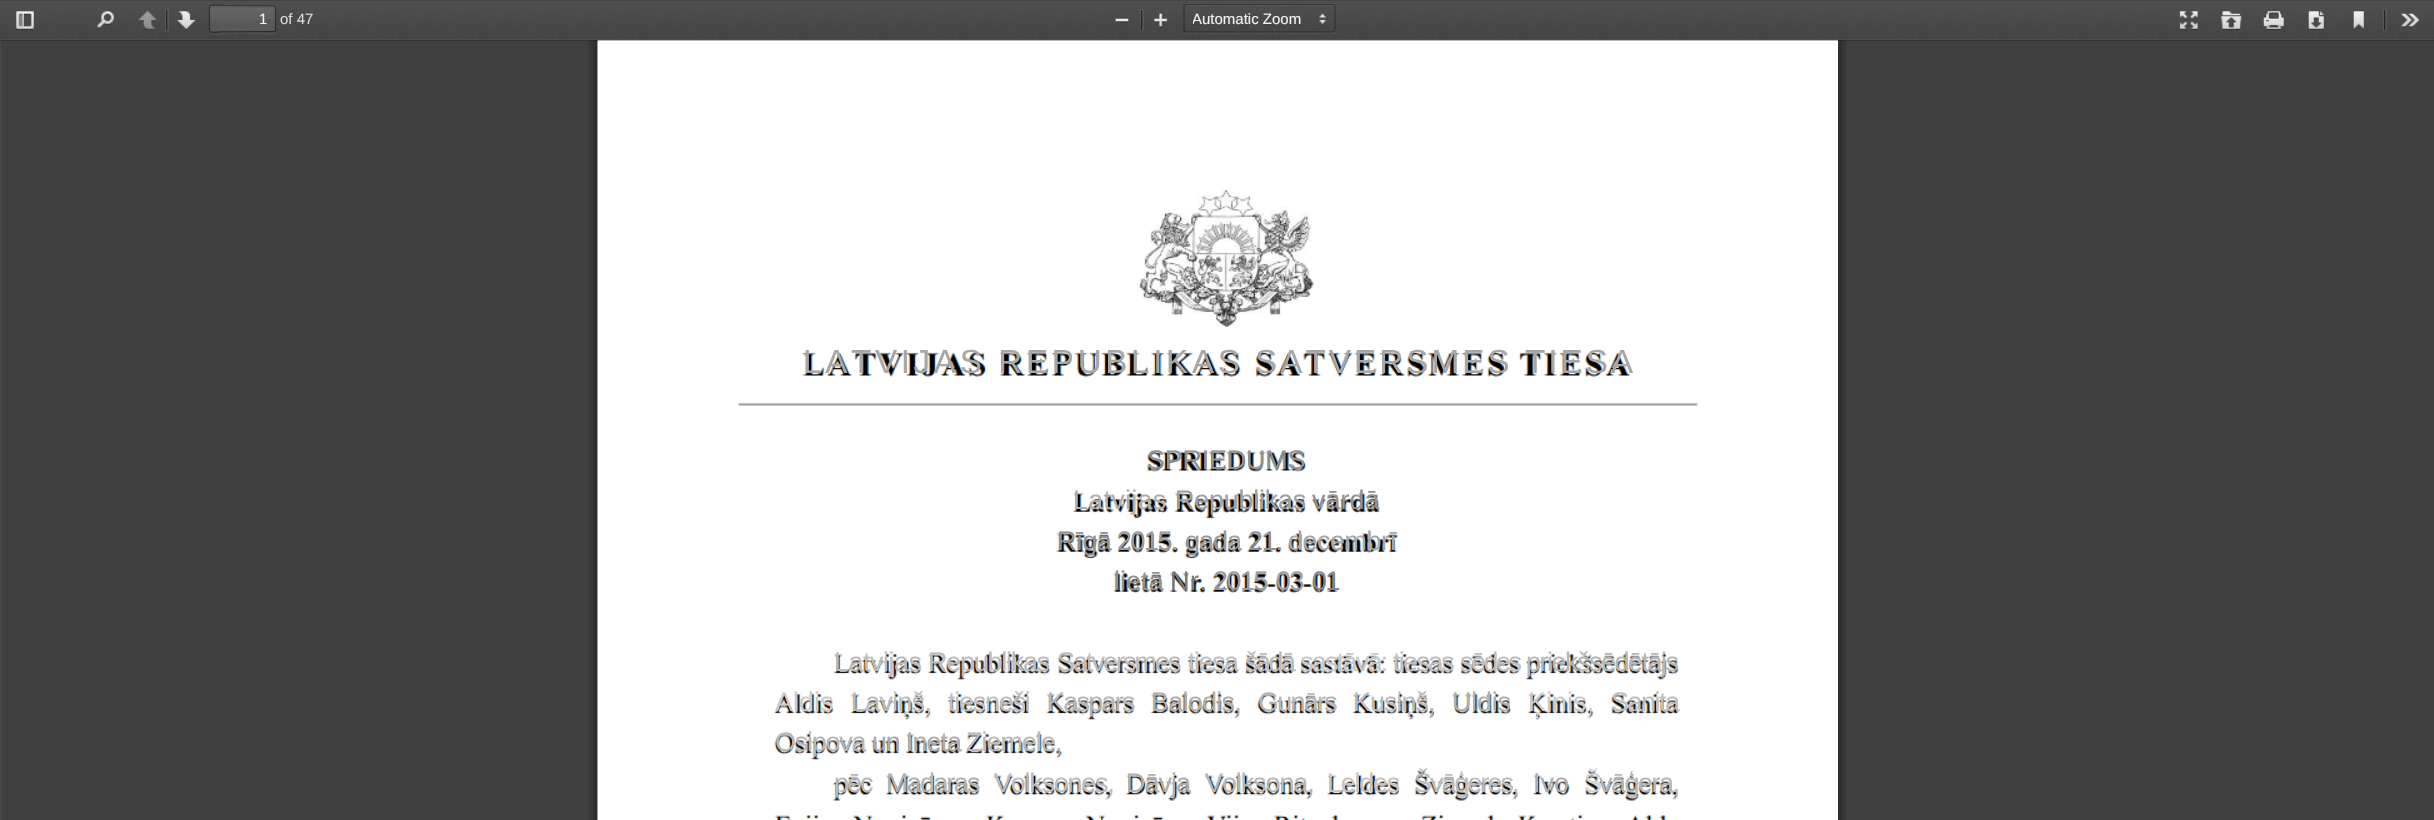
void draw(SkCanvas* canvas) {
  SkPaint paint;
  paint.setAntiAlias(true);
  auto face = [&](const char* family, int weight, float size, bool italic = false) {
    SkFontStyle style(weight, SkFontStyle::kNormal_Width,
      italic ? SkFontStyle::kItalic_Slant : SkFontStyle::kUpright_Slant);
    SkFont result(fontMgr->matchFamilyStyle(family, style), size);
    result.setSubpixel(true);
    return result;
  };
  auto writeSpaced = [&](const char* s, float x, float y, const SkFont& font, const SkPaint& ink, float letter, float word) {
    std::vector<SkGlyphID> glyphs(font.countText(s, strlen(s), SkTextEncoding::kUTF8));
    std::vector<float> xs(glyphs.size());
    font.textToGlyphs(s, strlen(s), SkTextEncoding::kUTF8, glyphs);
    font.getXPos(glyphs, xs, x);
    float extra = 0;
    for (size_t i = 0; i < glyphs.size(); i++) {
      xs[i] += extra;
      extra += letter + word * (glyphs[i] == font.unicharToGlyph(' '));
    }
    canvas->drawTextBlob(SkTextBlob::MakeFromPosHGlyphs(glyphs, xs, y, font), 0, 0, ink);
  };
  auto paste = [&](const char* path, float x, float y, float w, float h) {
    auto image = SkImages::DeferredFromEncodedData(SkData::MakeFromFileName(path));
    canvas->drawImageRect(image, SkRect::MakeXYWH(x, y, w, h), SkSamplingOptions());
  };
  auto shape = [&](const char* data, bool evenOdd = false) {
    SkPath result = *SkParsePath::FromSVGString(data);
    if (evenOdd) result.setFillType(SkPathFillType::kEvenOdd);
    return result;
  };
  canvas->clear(0xff404040);
  paint.setColor(0xff4a4a4a);
  canvas->drawRect(SkRect::MakeXYWH(0, 40, 1, 780), paint);
  paint.setColor(0xffffffff);
  canvas->drawRect(SkRect::MakeXYWH(598, 40, 1240, 1), paint);
  paste("img/15.png", 588, 40, 1259, 780);
  paste("img/16.png", 597, 40, 1241, 780);
  canvas->save();
  canvas->clipRect(SkRect::MakeXYWH(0, 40, 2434, 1));
  paint.setColor(0x1a000000);
  paint.setMaskFilter(SkMaskFilter::MakeBlur(kNormal_SkBlurStyle, 0.5f));
  canvas->drawRect(SkRect::MakeXYWH(0, 1, 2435, 40), paint);
  paint.setMaskFilter(nullptr);
  canvas->restore();
  paint.setColor(0x26000000);
  canvas->drawRect(SkRect::MakeXYWH(0, 40, 2434, 1), paint);
  paste("img/1.png", 0, 0, 2434, 40);
  paint.setColor(0x0dffffff);
  canvas->drawRect(SkRect::MakeXYWH(0, 39, 2434, 1), paint);
  paint.setColor(0x26000000);
  canvas->drawRect(SkRect::MakeXYWH(0, 0, 2434, 1), paint);
  paste("img/2.png", 16, 11, 18, 19);
  paste("img/3.png", 97, 11, 17, 18);
  paste("img/4.png", 138, 11, 19, 19);
  paint.setStroke(true);
  paint.setStrokeWidth(1);
  paint.setColor(0x14ffffff);
  canvas->drawRect(SkRect::MakeXYWH(165.5f, 9.5f, 3, 21), paint);
  paint.setStroke(false);
  paint.setColor(0x80000000);
  canvas->drawRect(SkRect::MakeXYWH(166, 10, 1, 20), paint);
  paste("img/5.png", 177, 11, 19, 19);
  paint.setColor(0x0dffffff);
  canvas->drawPath(shape("M209 31C209 37 220 34 222 34H263C265 34 276 37 276 31C274 34 265 32 263 32H211Z"), paint);
  paint.setColor(0x17ffffff);
  canvas->drawRect(SkRect::MakeXYWH(210, 6, 65, 25), paint);
  {
    const SkColor colors[] = {0x0dffffff, 0x00ffffff};
    const float stops[] = {0, 1};
    const SkPoint ends[] = {{243, 6.2f}, {243, 31}};
    paint.setShader(SkGradientShader::MakeLinear(ends, colors, stops, 2, SkTileMode::kClamp));
    paint.setAlpha(255);
  }
  canvas->drawRect(SkRect::MakeXYWH(210, 6, 65, 14), paint);
  paint.setShader(nullptr);
  paint.setColor(0x0d000000);
  canvas->drawPath(shape("M211 8H274L275 9C275 3 271 6 264 6H222C214 6 210 3 210 9Z"), paint);
  paint.setStroke(true);
  paint.setStrokeWidth(1.2f);
  paint.setColor(0x52000000);
  canvas->drawPath(shape("M210 6C212.5 3.5 217.5 5.5 221.5 5.5L275 6"), paint);
  paint.setColor(0x61000000);
  canvas->drawPath(shape("M275 6L275.5 7.5V30L275 31.5"), paint);
  paint.setColor(0x6b000000);
  canvas->drawPath(shape("M275 31.5L221.5 32C217.5 32 212.5 34 210 31.5"), paint);
  paint.setColor(0x61000000);
  canvas->drawPath(shape("M210 31.5L209.5 30V7.5L210 6"), paint);
  paste("img/6.png", 1115, 18, 14, 5);
  paint.setStrokeWidth(1);
  paint.setColor(0x14ffffff);
  canvas->drawRect(SkRect::MakeXYWH(1140.5f, 9.5f, 3, 21), paint);
  paint.setStroke(false);
  paint.setColor(0x80000000);
  canvas->drawRect(SkRect::MakeXYWH(1141, 10, 1, 20), paint);
  paste("img/7.png", 1154, 13, 14, 15);
  paint.setColor(0x0dffffff);
  canvas->drawPath(shape("M1184 32C1184 33 1185 34 1186 34H1334C1335 34 1336 33 1336 32V8V6V26C1336 28 1336 32 1333 32H1185Z"), paint);
  paste("img/8.png", 1319, 13, 7, 11);
  canvas->drawPath(shape("M1186 6H1333C1334 6 1334 7 1334 8V31C1336 31 1335 21 1335 6L1334 5H1186C1185 5 1185 6 1185 6Z"), paint);
  paint.setStroke(true);
  paint.setStrokeWidth(1.2f);
  paint.setColor(0x52000000);
  canvas->drawPath(shape("M1184.5 5L1185.5 4.5H1333L1334.5 5"), paint);
  paint.setColor(0x61000000);
  canvas->drawPath(shape("M1334.5 5L1335 6V30L1334.5 31.5"), paint);
  paint.setColor(0x6b000000);
  canvas->drawPath(shape("M1334.5 31.5L1333 32H1185.5L1184.5 31.5"), paint);
  paint.setColor(0x61000000);
  canvas->drawPath(shape("M1184.5 31.5L1184 30V6.5L1184.5 5"), paint);
  paste("img/9.png", 2179, 11, 19, 19);
  paste("img/10.png", 2221, 11, 21, 19);
  paste("img/11.png", 2263, 11, 21, 19);
  paste("img/12.png", 2308, 11, 16, 19);
  paste("img/13.png", 2353, 11, 11, 19);
  paint.setStrokeWidth(1);
  paint.setColor(0x14ffffff);
  canvas->drawRect(SkRect::MakeXYWH(2383.5f, 9.5f, 3, 21), paint);
  paint.setStroke(false);
  paint.setColor(0x80000000);
  canvas->drawRect(SkRect::MakeXYWH(2384, 10, 1, 20), paint);
  paste("img/14.png", 2401, 13, 19, 15);
  auto f0 = face("Liberation Sans", 400, 15);
  paint.setColor(0xfff2f2f2);
  canvas->drawString("1", 259, 24, f0, paint);
  paint.setColor(0xffd9d9d9);
  canvas->drawString("of 47", 280, 24, f0, paint);
  canvas->save();
  canvas->clipRect(SkRect::MakeXYWH(1193, 9, 147, 20));
  paint.setColor(0xfff2f2f2);
  canvas->drawString("Automatic Zoom", 1192, 24, f0, paint);
  canvas->restore();
  auto f1 = face("Liberation Sans", 400, 33.25f);
  paint.setColor(0xffa7a7a7);
  writeSpaced("L A T V I J A S   R E P U B L I K A S", 803, 373, f1, paint, -2.8f, 0);
  writeSpaced("S A T V E R S M E S   T I E S A", 1255, 373, f1, paint, -3.1f, 0);
  auto f2 = face("Liberation Sans", 400, 27);
  paint.setColor(0xff909193);
  writeSpaced("SPRIEDUMS", 1147, 469, f2, paint, -0.25f, 0);
  paint.setColor(0xffb2aeaa);
  writeSpaced("Latvijas", 1073, 509, f2, paint, 0.25f, 0);
  paint.setColor(0xff9ea0a2);
  writeSpaced("Republikas", 1175, 509, f2, paint, -0.25f, 0);
  paint.setColor(0xff969292);
  canvas->drawString("vārdā", 1312, 509, f2, paint);
  paint.setColor(0xff909193);
  writeSpaced("Rīgā", 1057, 550, f2, paint, -0.75f, 0);
  paint.setColor(0xff989b9f);
  writeSpaced("2015.", 1117, 550, f2, paint, -1.5f, 0);
  writeSpaced("gad", 1185, 550, f2, paint, -1, 0);
  paint.setColor(0xffa1a5aa);
  canvas->drawString("a", 1227, 550, f2, paint);
  paint.setColor(0xff909193);
  writeSpaced("21.", 1248, 550, f2, paint, -1.25f, 0);
  paint.setColor(0xffa7a7a7);
  writeSpaced("decembrī", 1288, 550, f2, paint, -0.5f, 0);
  paint.setColor(0xff97918c);
  canvas->drawString("lietā", 1114, 590, f2, paint);
  paint.setColor(0xff7a7a7d);
  writeSpaced("Nr.", 1170, 590, f2, paint, 0.5f, 0);
  paint.setColor(0xff989b9f);
  writeSpaced("2015", 1213, 590, f2, paint, -1.5f, 0);
  paint.setColor(0xff9ea0a2);
  writeSpaced("03", 1276, 590, f2, paint, -1.5f, 0);
  paint.setColor(0xff808790);
  writeSpaced("01", 1312, 590, f2, paint, -1.5f, 0);
  paint.setColor(0xffbebcbb);
  writeSpaced("Latvijas", 834, 671, f2, paint, -0.5f, 0);
  writeSpaced("Republikas", 928, 671, f2, paint, -1.25f, 0);
  writeSpaced("Satversmes", 1057, 671, f2, paint, -2, 0);
  paint.setColor(0xffc1c0c1);
  writeSpaced("tiesa", 1188, 671, f2, paint, -1.5f, 0);
  paint.setColor(0xffbebcbb);
  writeSpaced("šādā", 1245, 671, f2, paint, -2.5f, 0);
  paint.setColor(0xffc8c8c8);
  writeSpaced("sastāvā:", 1300, 671, f2, paint, -1.75f, 0);
  paint.setColor(0xffc1c0c1);
  writeSpaced("tiesas", 1393, 671, f2, paint, -1.75f, 0);
  writeSpaced("sēdes", 1460, 671, f2, paint, -2.5f, 0);
  paint.setColor(0xffb6b7b7);
  writeSpaced("priekšsēdētājs", 1526, 671, f2, paint, -1.5f, 0);
  paint.setColor(0xffcecbc6);
  canvas->drawString("Aldis", 775, 711, f2, paint);
  paint.setColor(0xffbebcbb);
  writeSpaced("Laviņš,", 851, 711, f2, paint, -0.75f, 0);
  paint.setColor(0xffc1c0c1);
  writeSpaced("tiesneši", 948, 711, f2, paint, -1.25f, 0);
  paint.setColor(0xffb6b7b7);
  writeSpaced("Kaspars", 1047, 711, f2, paint, -1.75f, 0);
  paint.setColor(0xffb2aeaa);
  writeSpaced("Balodis,", 1151, 711, f2, paint, -0.75f, 0);
  paint.setColor(0xffb6b7b7);
  writeSpaced("Gunārs", 1258, 711, f2, paint, -1.75f, 0);
  paint.setColor(0xffbebcbb);
  writeSpaced("Kusiņš", 1353, 711, f2, paint, -1, 0);
  paint.setColor(0xffafb5bb);
  canvas->drawString(",", 1428, 711, f2, paint);
  paint.setColor(0xffb2aeaa);
  writeSpaced("Uldis", 1452, 711, f2, paint, -0.25f, 0);
  paint.setColor(0xffcecbc6);
  canvas->drawString("Ķinis,", 1528, 711, f2, paint);
  paint.setColor(0xffc1c0c1);
  writeSpaced("Sanita", 1611, 711, f2, paint, -1.5f, 0);
  paint.setColor(0xffb6b7b7);
  writeSpaced("Osipova", 775, 751, f2, paint, -1.25f, 0);
  paint.setColor(0xffa6acb7);
  writeSpaced("un", 872, 751, f2, paint, -1.25f, 0);
  paint.setColor(0xffb2aeaa);
  writeSpaced("Ineta", 906, 751, f2, paint, -1, 0);
  paint.setColor(0xffbfb9b3);
  writeSpaced("Ziemele,", 966, 751, f2, paint, -1, 0);
  paint.setColor(0xffb6b7b7);
  writeSpaced("pēc", 834, 792, f2, paint, -2, 0);
  paint.setColor(0xffb5b3b1);
  writeSpaced("Madaras", 886, 792, f2, paint, -1.75f, 0);
  paint.setColor(0xffbebcbb);
  writeSpaced("Volksones,", 994, 792, f2, paint, -1.25f, 0);
  paint.setColor(0xffb2aeaa);
  writeSpaced("Dāvja", 1126, 792, f2, paint, -1, 0);
  paint.setColor(0xffb6b7b7);
  writeSpaced("Volksona,", 1205, 792, f2, paint, -1.1f, 0);
  paint.setColor(0xffc9c4bf);
  writeSpaced("Leldes", 1327, 792, f2, paint, -1.25f, 0);
  paint.setColor(0xffbebcbb);
  writeSpaced("Švāģeres,", 1414, 792, f2, paint, -2, 0);
  paint.setColor(0xffb2aeaa);
  canvas->drawString("Ivo", 1533, 792, f2, paint);
  paint.setColor(0xffd1d4d5);
  canvas->drawString("Š", 1584, 792, f2, paint);
  paint.setColor(0xffb6b7b7);
  writeSpaced("vāģera,", 1599, 792, f2, paint, -1.5f, 0);
}
